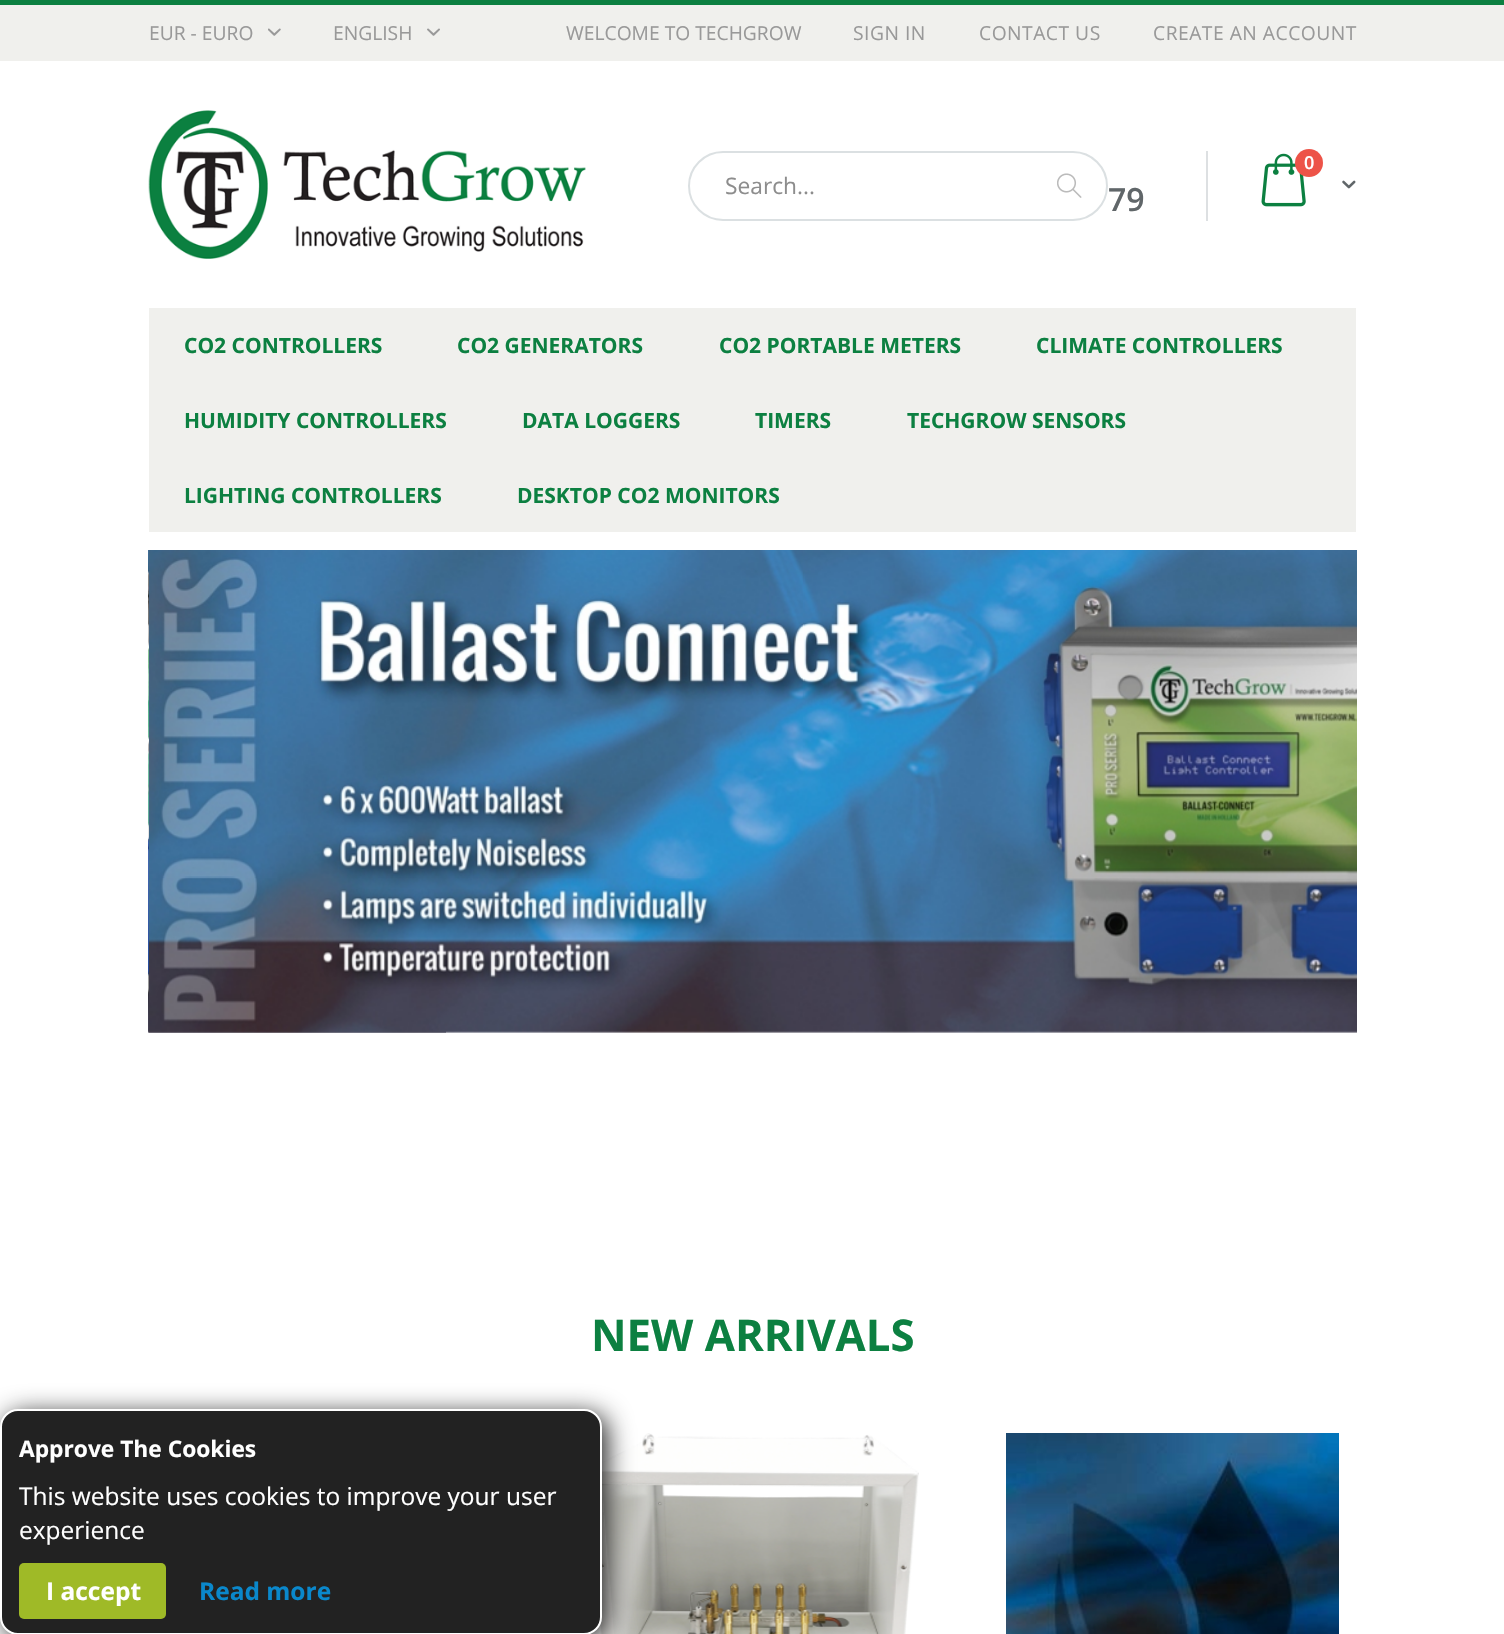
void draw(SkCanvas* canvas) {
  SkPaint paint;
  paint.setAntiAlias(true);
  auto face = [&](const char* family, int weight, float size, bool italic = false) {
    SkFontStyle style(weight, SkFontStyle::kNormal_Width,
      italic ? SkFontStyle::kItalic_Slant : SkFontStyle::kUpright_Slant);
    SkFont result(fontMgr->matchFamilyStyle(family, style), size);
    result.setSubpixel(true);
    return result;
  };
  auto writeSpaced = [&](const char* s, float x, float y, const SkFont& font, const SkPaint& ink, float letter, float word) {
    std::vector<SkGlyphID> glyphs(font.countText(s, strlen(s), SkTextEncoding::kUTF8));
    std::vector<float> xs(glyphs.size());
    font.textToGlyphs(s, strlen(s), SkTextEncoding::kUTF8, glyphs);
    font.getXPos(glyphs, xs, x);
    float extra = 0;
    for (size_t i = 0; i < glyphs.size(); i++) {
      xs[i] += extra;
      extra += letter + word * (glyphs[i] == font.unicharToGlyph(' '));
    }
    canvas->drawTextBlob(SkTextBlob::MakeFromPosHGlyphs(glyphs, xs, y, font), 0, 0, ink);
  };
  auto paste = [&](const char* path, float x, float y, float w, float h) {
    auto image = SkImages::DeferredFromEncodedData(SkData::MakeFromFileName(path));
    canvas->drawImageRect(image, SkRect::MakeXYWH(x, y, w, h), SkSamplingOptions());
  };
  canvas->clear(0xffffffff);
  paint.setColor(0xff0c8041);
  canvas->drawRect(SkRect::MakeXYWH(0, 0, 1504, 5), paint);
  paint.setColor(0xfff0f0ed);
  canvas->drawRect(SkRect::MakeXYWH(0, 5, 1504, 56), paint);
  paste("img/1.png", 268, 28, 13, 8);
  paste("img/2.png", 427, 28, 13, 8);
  paste("img/3.png", 148, 110, 438, 149);
  paste("img/4.png", 1261, 153, 45, 54);
  paint.setColor(0xffed5348);
  canvas->drawCircle(1309, 163, 14, paint);
  paste("img/5.png", 1342, 180, 14, 9);
  paint.setStroke(true);
  paint.setStrokeWidth(2);
  paint.setColor(0xffdbe0e2);
  canvas->drawRoundRect(SkRect::MakeXYWH(689, 152, 418, 68), 34, 34, paint);
  paste("img/6.png", 1057, 173, 25, 25);
  paint.setStroke(false);
  paint.setColor(0xffdde0e2);
  canvas->drawRect(SkRect::MakeXYWH(1206, 151, 2, 70), paint);
  paint.setColor(0xfff0f0ed);
  canvas->drawRect(SkRect::MakeXYWH(149, 308, 1207, 224), paint);
  paste("img/7.png", 148, 550, 298, 483);
  paste("img/8.png", 149, 550, 1208, 483);
  paste("img/9.png", 598, 1433, 321, 201);
  paste("img/10.png", 1006, 1433, 333, 201);
  paint.setColor(0xff222222);
  paint.setMaskFilter(SkMaskFilter::MakeBlur(kNormal_SkBlurStyle, 13));
  canvas->drawRoundRect(SkRect::MakeXYWH(5, 1414, 602, 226), 18, 18, paint);
  paint.setMaskFilter(nullptr);
  canvas->drawRoundRect(SkRect::MakeXYWH(1, 1410, 600, 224), 17, 17, paint);
  paint.setStroke(true);
  paint.setColor(0xffffffff);
  canvas->drawRoundRect(SkRect::MakeXYWH(1, 1410, 600, 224), 17, 17, paint);
  paint.setStroke(false);
  paint.setColor(0xff9fba27);
  canvas->drawRoundRect(SkRect::MakeXYWH(19, 1563, 147, 56), 5, 5, paint);
  auto f0 = face("Open Sans", 400, 19.25f);
  paint.setColor(0xff999999);
  {
    const struct { const char* s; float x, y; } items[] = {
      {"EUR - EURO", 149, 40},
      {"ENGLISH", 333, 40},
      {"WELCOME TO TECHGROW", 566, 40},
    };
    for (auto [s, x, y] : items) {
      canvas->drawString(s, x, y, f0, paint);
    }
  }
  {
    const struct { const char* s; float x, y; } items[] = {
      {"SIGN IN", 853, 40},
      {"CONTACT US", 979, 40},
      {"CREATE AN ACCOUNT", 1153, 40},
    };
    for (auto [s, x, y] : items) {
      writeSpaced(s, x, y, f0, paint, 0.5f, 0);
    }
  }
  auto f1 = face("Open Sans", 600, 18);
  paint.setColor(0xffffffff);
  canvas->drawString("0", 1304, 169, f1, paint);
  auto f2 = face("Open Sans", 400, 22.75f);
  paint.setColor(0xff8d8d8d);
  canvas->drawString("Search...", 725, 194, f2, paint);
  auto f3 = face("Open Sans", 600, 32);
  paint.setColor(0xff606669);
  canvas->drawString("79", 1108, 211, f3, paint);
  auto f4 = face("Open Sans", 700, 21);
  paint.setColor(0xff0c8041);
  {
    const struct { const char* s; float x, y; } items[] = {
      {"CO2 CONTROLLERS", 184, 353},
      {"CO2 GENERATORS", 457, 353},
      {"CO2 PORTABLE METERS", 719, 353},
      {"CLIMATE CONTROLLERS", 1036, 353},
      {"HUMIDITY CONTROLLERS", 184, 428},
      {"DATA LOGGERS", 522, 428},
      {"TIMERS", 755, 428},
      {"TECHGROW SENSORS", 907, 428},
      {"LIGHTING CONTROLLERS", 184, 503},
      {"DESKTOP CO2 MONITORS", 517, 503},
    };
    for (auto [s, x, y] : items) {
      canvas->drawString(s, x, y, f4, paint);
    }
  }
  auto f5 = face("Open Sans", 700, 43.75f);
  canvas->drawString("NEW ARRIVALS", 591, 1351, f5, paint);
  auto f6 = face("Open Sans", 700, 22.75f);
  paint.setColor(0xffffffff);
  canvas->drawString("Approve The Cookies", 19, 1457, f6, paint);
  auto f7 = face("Open Sans", 400, 24.5f);
  canvas->drawString("This website uses cookies to improve your user", 19, 1505, f7, paint);
  canvas->drawString("experience", 19, 1539, f7, paint);
  auto f8 = face("Open Sans", 700, 24.5f);
  canvas->drawString("I accept", 46, 1600, f8, paint);
  paint.setColor(0xff0a88cc);
  canvas->drawString("Read more", 199, 1600, f8, paint);
}
